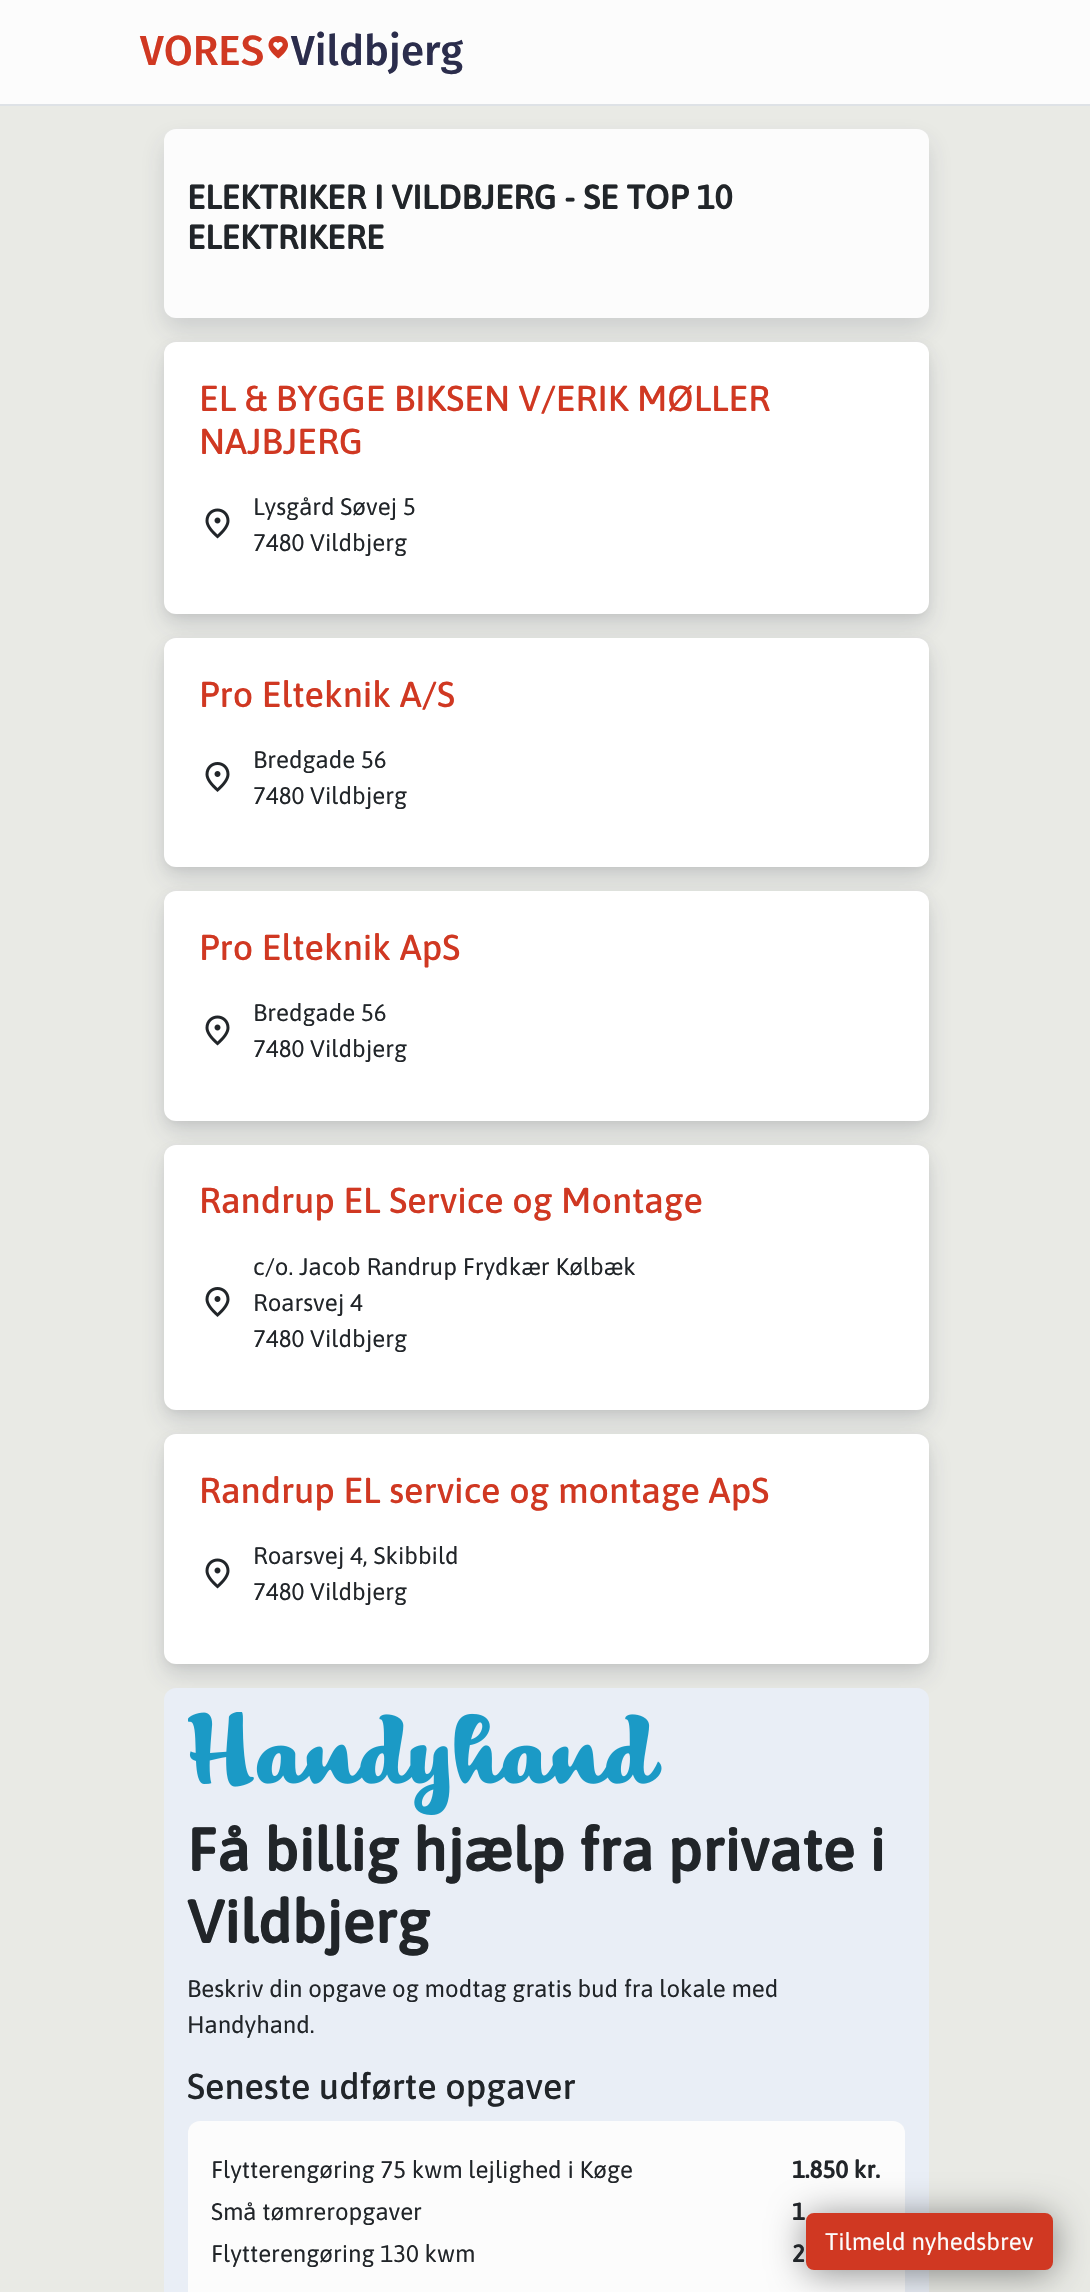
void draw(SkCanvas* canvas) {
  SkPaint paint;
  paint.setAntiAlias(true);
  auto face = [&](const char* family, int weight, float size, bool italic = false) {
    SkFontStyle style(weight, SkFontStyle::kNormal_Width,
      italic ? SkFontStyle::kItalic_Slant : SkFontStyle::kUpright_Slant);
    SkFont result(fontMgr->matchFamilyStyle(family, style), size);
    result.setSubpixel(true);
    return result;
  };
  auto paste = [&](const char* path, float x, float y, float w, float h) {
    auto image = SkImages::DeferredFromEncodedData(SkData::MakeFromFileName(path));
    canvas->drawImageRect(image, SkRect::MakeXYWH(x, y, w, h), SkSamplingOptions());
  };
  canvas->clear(0xffe9eae5);
  paint.setColor(0xfffcfcfc);
  canvas->drawRect(SkRect::MakeXYWH(0, 0, 1090, 104), paint);
  paint.setColor(0x262b2d4c);
  paint.setMaskFilter(SkMaskFilter::MakeBlur(kNormal_SkBlurStyle, 12));
  canvas->drawRoundRect(SkRect::MakeXYWH(164, 141, 765, 189), 12, 12, paint);
  paint.setMaskFilter(nullptr);
  paint.setColor(0xffdee2e6);
  canvas->drawRect(SkRect::MakeXYWH(0, 104, 1090, 2), paint);
  paste("img/1.png", 268, 36, 20, 23);
  paint.setColor(0xfffcfcfc);
  canvas->drawRoundRect(SkRect::MakeXYWH(164, 129, 765, 189), 12, 12, paint);
  paint.setColor(0x262b2d4c);
  paint.setMaskFilter(SkMaskFilter::MakeBlur(kNormal_SkBlurStyle, 12));
  canvas->drawRoundRect(SkRect::MakeXYWH(164, 354, 765, 272), 12, 12, paint);
  paint.setMaskFilter(nullptr);
  paint.setColor(0x0d000000);
  paint.setMaskFilter(SkMaskFilter::MakeBlur(kNormal_SkBlurStyle, 3));
  canvas->drawRoundRect(SkRect::MakeXYWH(164, 345, 765, 272), 12, 12, paint);
  paint.setMaskFilter(nullptr);
  paint.setColor(0x262b2d4c);
  paint.setMaskFilter(SkMaskFilter::MakeBlur(kNormal_SkBlurStyle, 12));
  canvas->drawRoundRect(SkRect::MakeXYWH(164, 650, 765, 229), 12, 12, paint);
  paint.setMaskFilter(nullptr);
  paint.setColor(0xffffffff);
  canvas->drawRoundRect(SkRect::MakeXYWH(164, 342, 765, 272), 12, 12, paint);
  paste("img/2.png", 205, 508, 25, 31);
  paint.setColor(0x0d000000);
  paint.setMaskFilter(SkMaskFilter::MakeBlur(kNormal_SkBlurStyle, 3));
  canvas->drawRoundRect(SkRect::MakeXYWH(164, 641, 765, 229), 12, 12, paint);
  paint.setMaskFilter(nullptr);
  paint.setColor(0x262b2d4c);
  paint.setMaskFilter(SkMaskFilter::MakeBlur(kNormal_SkBlurStyle, 12));
  canvas->drawRoundRect(SkRect::MakeXYWH(164, 903, 765, 230), 12, 12, paint);
  paint.setMaskFilter(nullptr);
  paint.setColor(0xffffffff);
  canvas->drawRoundRect(SkRect::MakeXYWH(164, 638, 765, 229), 12, 12, paint);
  paste("img/3.png", 205, 762, 25, 30);
  paint.setColor(0x0d000000);
  paint.setMaskFilter(SkMaskFilter::MakeBlur(kNormal_SkBlurStyle, 3));
  canvas->drawRoundRect(SkRect::MakeXYWH(164, 894, 765, 230), 12, 12, paint);
  paint.setMaskFilter(nullptr);
  paint.setColor(0x262b2d4c);
  paint.setMaskFilter(SkMaskFilter::MakeBlur(kNormal_SkBlurStyle, 12));
  canvas->drawRoundRect(SkRect::MakeXYWH(164, 1157, 765, 265), 12, 12, paint);
  paint.setMaskFilter(nullptr);
  paint.setColor(0xffffffff);
  canvas->drawRoundRect(SkRect::MakeXYWH(164, 891, 765, 230), 12, 12, paint);
  paste("img/2.png", 205, 1015, 25, 31);
  paint.setColor(0x0d000000);
  paint.setMaskFilter(SkMaskFilter::MakeBlur(kNormal_SkBlurStyle, 3));
  canvas->drawRoundRect(SkRect::MakeXYWH(164, 1148, 765, 265), 12, 12, paint);
  paint.setMaskFilter(nullptr);
  paint.setColor(0x262b2d4c);
  paint.setMaskFilter(SkMaskFilter::MakeBlur(kNormal_SkBlurStyle, 12));
  canvas->drawRoundRect(SkRect::MakeXYWH(164, 1446, 765, 230), 12, 12, paint);
  paint.setMaskFilter(nullptr);
  paint.setColor(0xffffffff);
  canvas->drawRoundRect(SkRect::MakeXYWH(164, 1145, 765, 265), 12, 12, paint);
  paste("img/3.png", 205, 1287, 25, 30);
  paint.setColor(0x0d000000);
  paint.setMaskFilter(SkMaskFilter::MakeBlur(kNormal_SkBlurStyle, 3));
  canvas->drawRoundRect(SkRect::MakeXYWH(164, 1437, 765, 230), 12, 12, paint);
  paint.setMaskFilter(nullptr);
  paint.setColor(0xffffffff);
  canvas->drawRoundRect(SkRect::MakeXYWH(164, 1434, 765, 230), 12, 12, paint);
  paste("img/2.png", 205, 1558, 25, 31);
  paint.setColor(0xffe9eef6);
  canvas->drawRoundRect(SkRect::MakeXYWH(164, 1688, 765, 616), 12, 12, paint);
  paste("img/4.png", 188, 1712, 474, 103);
  paint.setColor(0xfffcfcfc);
  canvas->drawRoundRect(SkRect::MakeXYWH(188, 2121, 717, 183), 12, 12, paint);
  paint.setColor(0x73000000);
  paint.setMaskFilter(SkMaskFilter::MakeBlur(kNormal_SkBlurStyle, 18));
  canvas->drawRoundRect(SkRect::MakeXYWH(806, 2216, 247, 57), 8, 8, paint);
  paint.setMaskFilter(nullptr);
  paint.setColor(0xffd03822);
  canvas->drawRoundRect(SkRect::MakeXYWH(807, 2214, 245, 55), 7, 7, paint);
  paint.setStroke(true);
  paint.setStrokeWidth(2);
  canvas->drawRoundRect(SkRect::MakeXYWH(807, 2214, 245, 55), 7, 7, paint);
  auto f0 = face("Fira Sans", 500, 42);
  paint.setStroke(false);
  canvas->drawString("VORES", 140, 65, f0, paint);
  paint.setColor(0xff2b2d4c);
  canvas->drawString("Vildbjerg", 291, 65, f0, paint);
  auto f1 = face("Asap", 700, 33.6f);
  paint.setColor(0xff212529);
  canvas->drawString("ELEKTRIKER I VILDBJERG - SE TOP 10", 187, 209, f1, paint);
  canvas->drawString("ELEKTRIKERE", 187, 249, f1, paint);
  auto f2 = face("Asap", 500, 36);
  paint.setColor(0xffd03822);
  canvas->drawString("EL & BYGGE BIKSEN V/ERIK MØLLER", 199, 411, f2, paint);
  canvas->drawString("NAJBJERG", 199, 454, f2, paint);
  auto f3 = face("Asap", 400, 24);
  paint.setColor(0xff212529);
  canvas->drawString("Lysgård Søvej 5", 253, 515, f3, paint);
  canvas->drawString("7480 Vildbjerg", 253, 551, f3, paint);
  paint.setColor(0xffd03822);
  canvas->drawString("Pro Elteknik A/S", 199, 707, f2, paint);
  paint.setColor(0xff212529);
  canvas->drawString("Bredgade 56", 253, 768, f3, paint);
  canvas->drawString("7480 Vildbjerg", 253, 804, f3, paint);
  paint.setColor(0xffd03822);
  canvas->drawString("Pro Elteknik ApS", 199, 960, f2, paint);
  paint.setColor(0xff212529);
  canvas->drawString("Bredgade 56", 253, 1021, f3, paint);
  canvas->drawString("7480 Vildbjerg", 253, 1057, f3, paint);
  paint.setColor(0xffd03822);
  canvas->drawString("Randrup EL Service og Montage", 199, 1213, f2, paint);
  paint.setColor(0xff212529);
  {
    const struct { const char* s; float x, y; } items[] = {
      {"c/o. Jacob Randrup Frydkær Kølbæk", 253, 1275},
      {"Roarsvej 4", 253, 1311},
      {"7480 Vildbjerg", 253, 1347},
    };
    for (auto [s, x, y] : items) {
      canvas->drawString(s, x, y, f3, paint);
    }
  }
  paint.setColor(0xffd03822);
  canvas->drawString("Randrup EL service og montage ApS", 199, 1503, f2, paint);
  paint.setColor(0xff212529);
  canvas->drawString("Roarsvej 4, Skibbild", 253, 1564, f3, paint);
  canvas->drawString("7480 Vildbjerg", 253, 1600, f3, paint);
  auto f4 = face("Asap", 700, 60);
  canvas->drawString("Få billig hjælp fra private i", 187, 1871, f4, paint);
  canvas->drawString("Vildbjerg", 187, 1943, f4, paint);
  canvas->drawString("Beskriv din opgave og modtag gratis bud fra lokale med", 187, 1997, f3, paint);
  canvas->drawString("Handyhand.", 187, 2033, f3, paint);
  canvas->drawString("Seneste udførte opgaver", 187, 2099, f2, paint);
  canvas->drawString("Flytterengøring 75 kwm lejlighed i Køge", 211, 2178, f3, paint);
  auto f5 = face("Asap", 700, 24);
  canvas->drawString("1.850 kr.", 792, 2178, f5, paint);
  canvas->drawString("Små tømreropgaver", 211, 2220, f3, paint);
  canvas->drawString("1", 792, 2220, f5, paint);
  canvas->drawString("Flytterengøring 130 kwm", 211, 2262, f3, paint);
  canvas->drawString("2", 792, 2262, f5, paint);
  paint.setColor(0xfffcfcfc);
  canvas->drawString("Tilmeld nyhedsbrev", 825, 2250, f3, paint);
}
